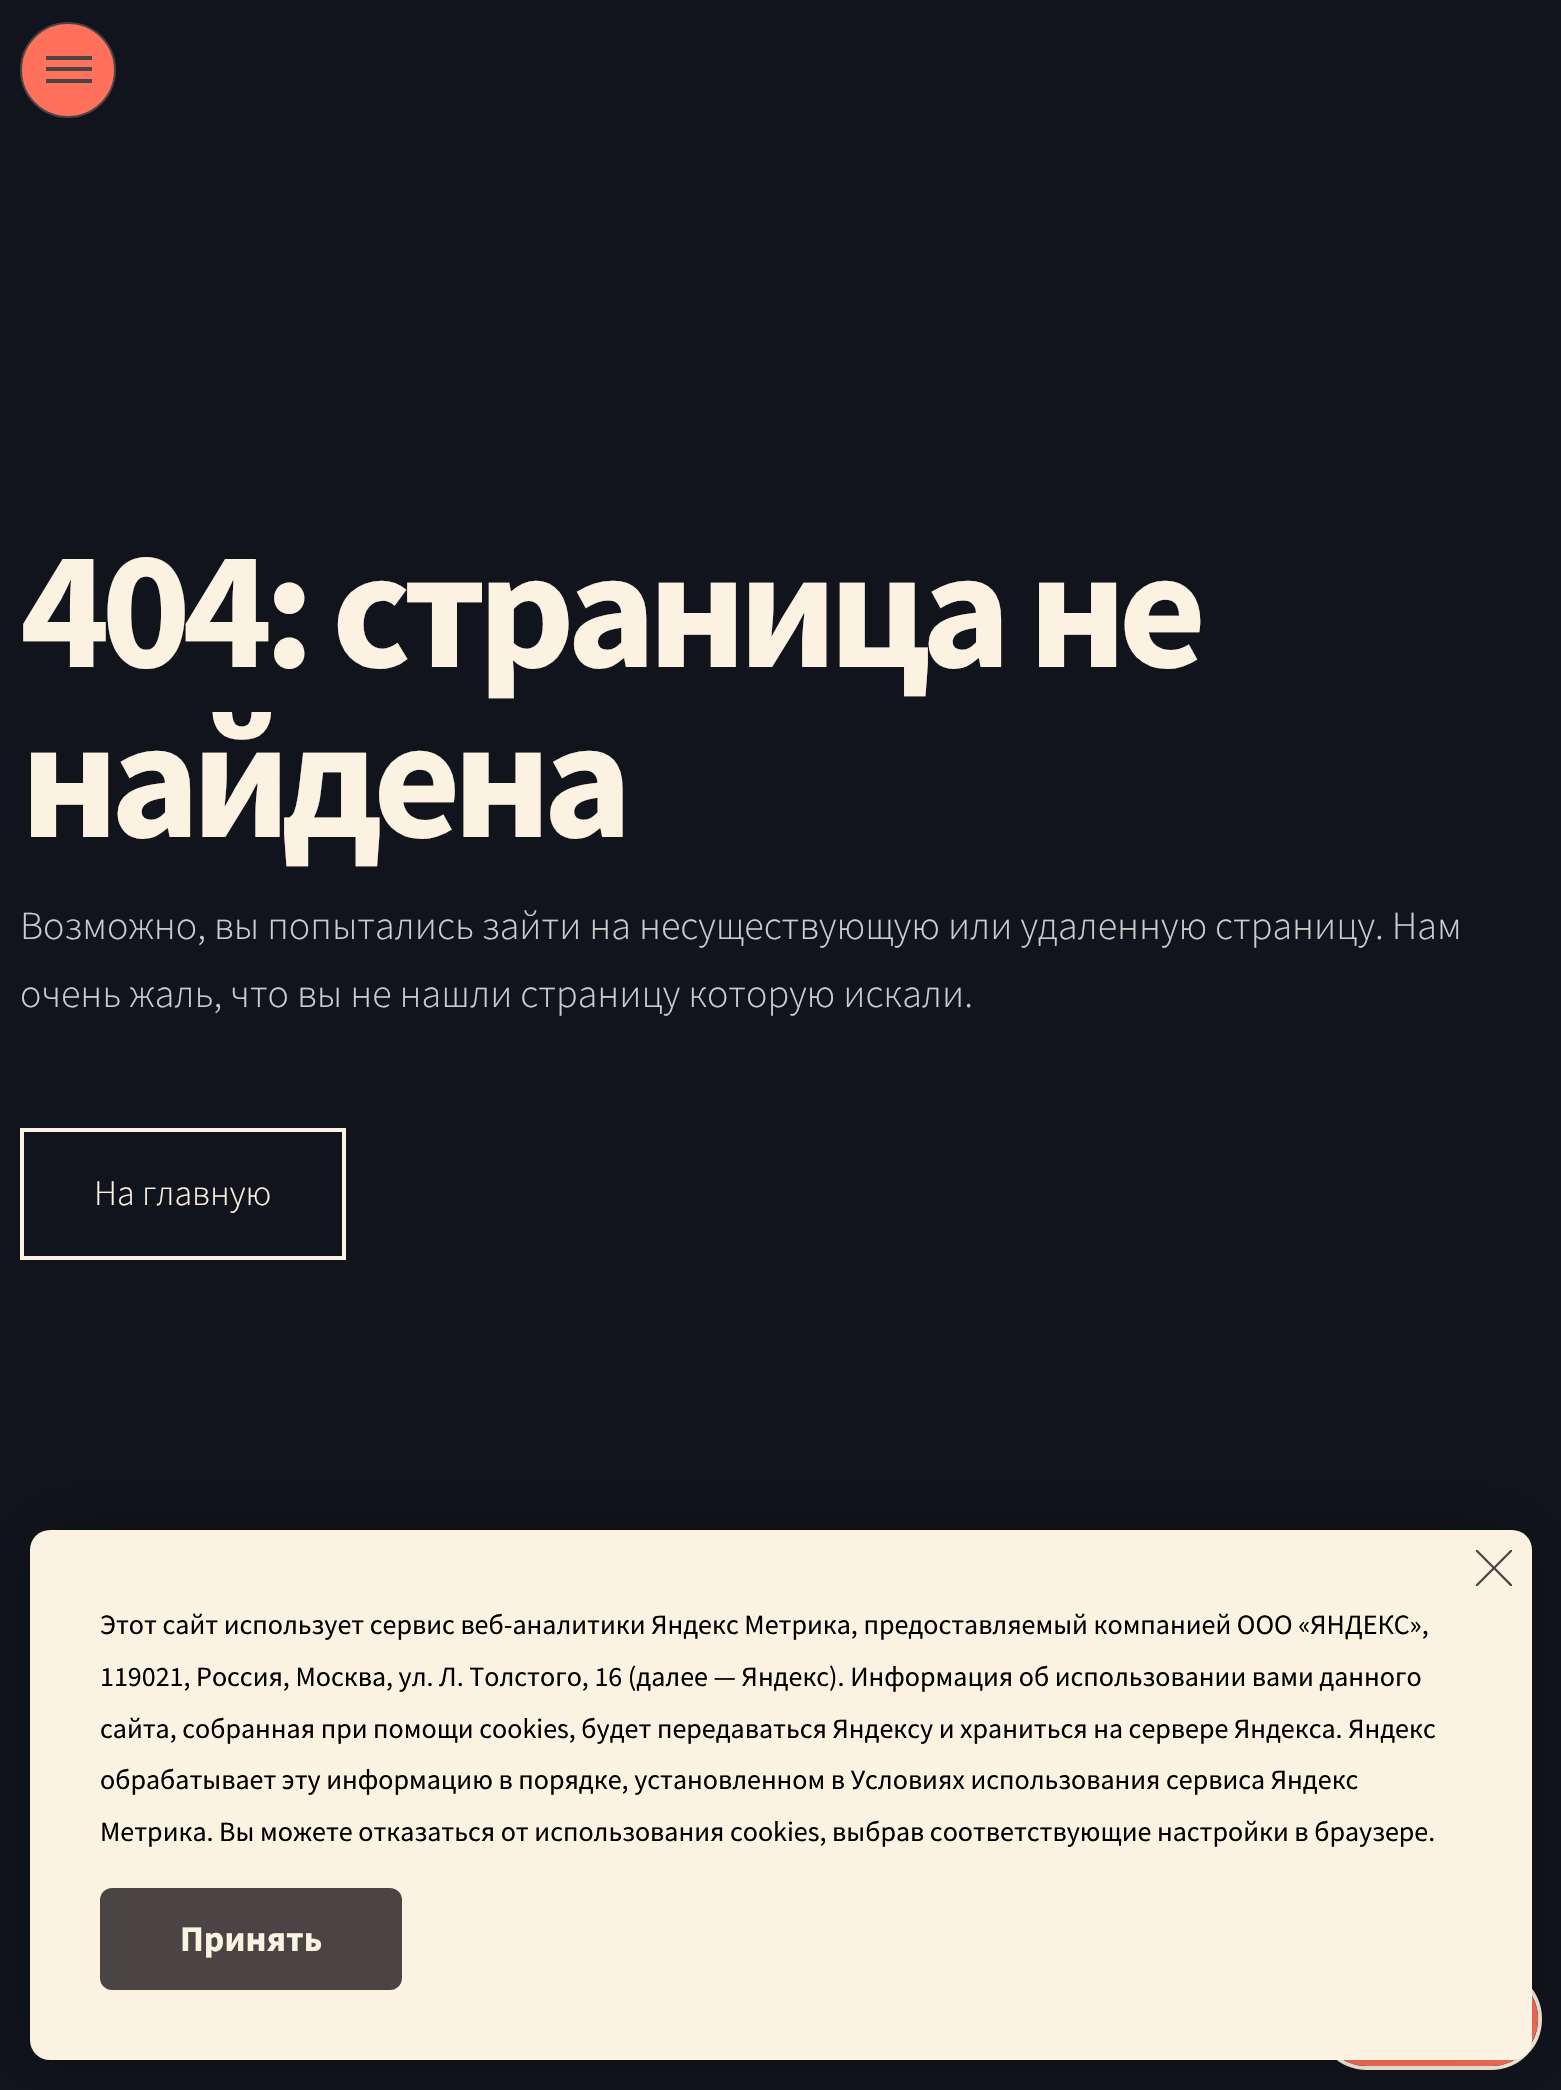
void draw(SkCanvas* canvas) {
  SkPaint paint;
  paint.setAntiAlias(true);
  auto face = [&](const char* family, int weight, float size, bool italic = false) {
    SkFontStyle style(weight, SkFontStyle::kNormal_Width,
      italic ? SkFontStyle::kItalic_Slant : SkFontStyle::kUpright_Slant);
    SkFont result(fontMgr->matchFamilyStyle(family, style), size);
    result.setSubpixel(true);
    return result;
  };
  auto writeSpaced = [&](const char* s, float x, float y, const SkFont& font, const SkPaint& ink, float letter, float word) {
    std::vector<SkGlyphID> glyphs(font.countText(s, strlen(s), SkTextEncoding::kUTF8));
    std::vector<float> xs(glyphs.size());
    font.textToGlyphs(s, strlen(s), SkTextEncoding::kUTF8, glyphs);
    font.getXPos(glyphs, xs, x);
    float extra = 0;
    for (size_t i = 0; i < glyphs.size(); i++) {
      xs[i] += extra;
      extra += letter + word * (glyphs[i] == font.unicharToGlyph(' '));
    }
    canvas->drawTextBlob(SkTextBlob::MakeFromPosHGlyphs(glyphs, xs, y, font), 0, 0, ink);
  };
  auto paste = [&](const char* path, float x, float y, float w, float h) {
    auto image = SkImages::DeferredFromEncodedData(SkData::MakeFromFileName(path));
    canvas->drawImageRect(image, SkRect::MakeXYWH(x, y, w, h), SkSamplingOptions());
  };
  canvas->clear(0xff12141d);
  paint.setColor(0xffff715b);
  canvas->drawCircle(68, 70, 47, paint);
  paint.setStroke(true);
  paint.setStrokeWidth(2);
  paint.setColor(0xff4a4444);
  canvas->drawCircle(68, 70, 47, paint);
  paint.setStroke(false);
  {
    const struct { float x, y, w, h; SkColor color; } items[] = {
      {46, 56, 46, 4, 0xff4a4444},
      {46, 67, 46, 4, 0xff4a4444},
      {46, 79, 46, 4, 0xff4a4444},
    };
    for (auto [x, y, w, h, color] : items) {
      paint.setColor(color);
      canvas->drawRect(SkRect::MakeXYWH(x, y, w, h), paint);
    }
  }
  paint.setStroke(true);
  paint.setStrokeWidth(4);
  paint.setColor(0xfffbf2e1);
  canvas->drawRect(SkRect::MakeXYWH(22, 1130, 322, 128), paint);
  canvas->drawRoundRect(SkRect::MakeXYWH(1318, 1970, 222, 98), 49, 49, paint);
  paint.setStroke(false);
  paint.setColor(0xffff715b);
  canvas->drawRoundRect(SkRect::MakeXYWH(1320, 1972, 218, 94), 47, 47, paint);
  paint.setColor(0x40000000);
  paint.setMaskFilter(SkMaskFilter::MakeBlur(kNormal_SkBlurStyle, 40));
  canvas->drawRoundRect(SkRect::MakeXYWH(30, 1530, 1502, 530), 20, 20, paint);
  paint.setMaskFilter(nullptr);
  paint.setColor(0xfffbf2e1);
  canvas->drawRoundRect(SkRect::MakeXYWH(30, 1530, 1502, 530), 20, 20, paint);
  paste("img/1.png", 1476, 1550, 36, 36);
  paint.setColor(0xff4a4444);
  canvas->drawRoundRect(SkRect::MakeXYWH(100, 1888, 302, 102), 12, 12, paint);
  auto f0 = face("Source Sans Pro", 700, 170);
  paint.setColor(0xfffbf2e1);
  writeSpaced("404: страница не", 20, 667, f0, paint, -8.5f, 0);
  writeSpaced("найдена", 20, 837, f0, paint, -8.5f, 0);
  auto f1 = face("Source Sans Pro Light", 300, 40);
  paint.setColor(0xffcccccc);
  canvas->drawString("Возможно, вы попытались зайти на несуществующую или удаленную страницу. Нам", 20, 939, f1, paint);
  canvas->drawString("очень жаль, что вы не нашли страницу которую искали.", 20, 1007, f1, paint);
  auto f2 = face("Source Sans Pro Light", 300, 36);
  paint.setColor(0xfffbf2e1);
  canvas->drawString("На главную", 94, 1205, f2, paint);
  auto f3 = face("Source Sans Pro", 400, 28);
  paint.setColor(0xff000000);
  {
    const struct { const char* s; float x, y; } items[] = {
      {"Этот сайт использует сервис веб-аналитики Яндекс Метрика, предоставляемый компанией ООО «ЯНДЕКС»,", 100, 1634},
      {"119021, Россия, Москва, ул. Л. Толстого, 16 (далее — Яндекс). Информация об использовании вами данного", 100, 1686},
      {"сайта, собранная при помощи cookies, будет передаваться Яндексу и храниться на сервере Яндекса. Яндекс", 100, 1738},
      {"обрабатывает эту информацию в порядке, установленном в Условиях использования сервиса Яндекс", 100, 1789},
      {"Метрика. Вы можете отказаться от использования cookies, выбрав соответствующие настройки в браузере.", 100, 1841},
    };
    for (auto [s, x, y] : items) {
      canvas->drawString(s, x, y, f3, paint);
    }
  }
  auto f4 = face("Source Sans Pro", 700, 36);
  paint.setColor(0xfffbf2e1);
  canvas->drawString("Принять", 180, 1951, f4, paint);
}
